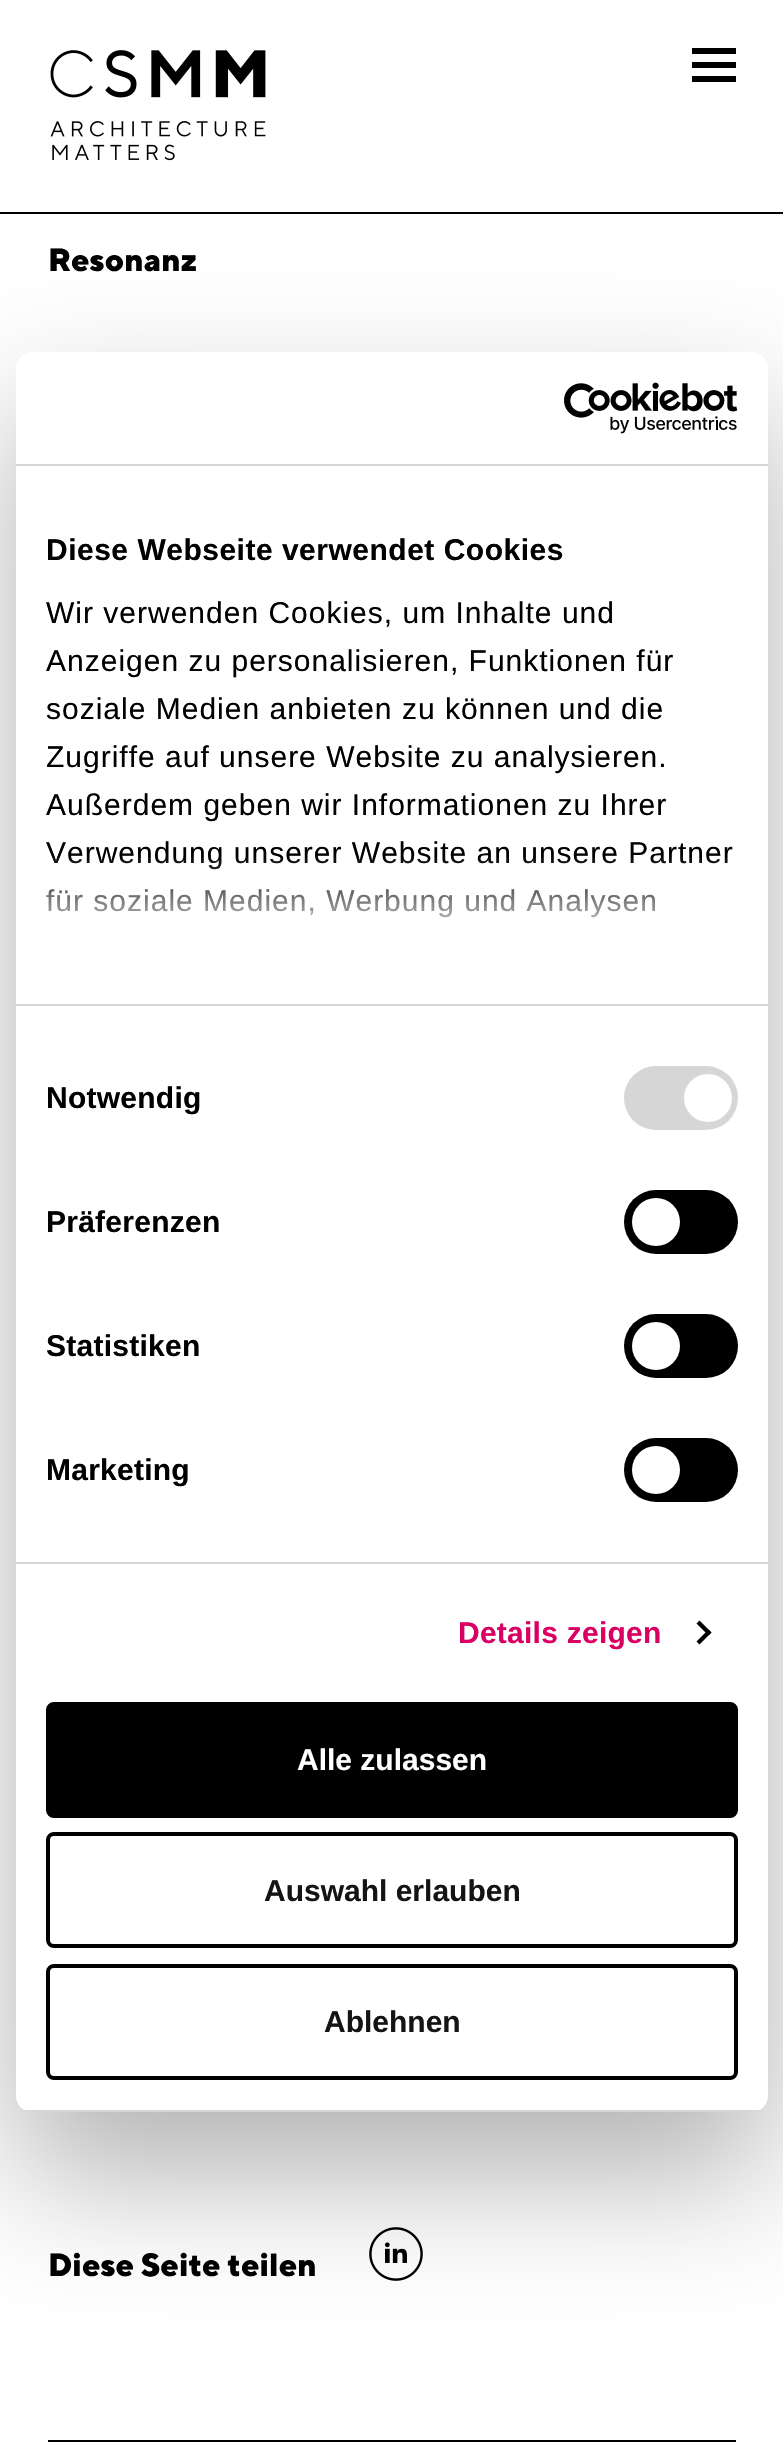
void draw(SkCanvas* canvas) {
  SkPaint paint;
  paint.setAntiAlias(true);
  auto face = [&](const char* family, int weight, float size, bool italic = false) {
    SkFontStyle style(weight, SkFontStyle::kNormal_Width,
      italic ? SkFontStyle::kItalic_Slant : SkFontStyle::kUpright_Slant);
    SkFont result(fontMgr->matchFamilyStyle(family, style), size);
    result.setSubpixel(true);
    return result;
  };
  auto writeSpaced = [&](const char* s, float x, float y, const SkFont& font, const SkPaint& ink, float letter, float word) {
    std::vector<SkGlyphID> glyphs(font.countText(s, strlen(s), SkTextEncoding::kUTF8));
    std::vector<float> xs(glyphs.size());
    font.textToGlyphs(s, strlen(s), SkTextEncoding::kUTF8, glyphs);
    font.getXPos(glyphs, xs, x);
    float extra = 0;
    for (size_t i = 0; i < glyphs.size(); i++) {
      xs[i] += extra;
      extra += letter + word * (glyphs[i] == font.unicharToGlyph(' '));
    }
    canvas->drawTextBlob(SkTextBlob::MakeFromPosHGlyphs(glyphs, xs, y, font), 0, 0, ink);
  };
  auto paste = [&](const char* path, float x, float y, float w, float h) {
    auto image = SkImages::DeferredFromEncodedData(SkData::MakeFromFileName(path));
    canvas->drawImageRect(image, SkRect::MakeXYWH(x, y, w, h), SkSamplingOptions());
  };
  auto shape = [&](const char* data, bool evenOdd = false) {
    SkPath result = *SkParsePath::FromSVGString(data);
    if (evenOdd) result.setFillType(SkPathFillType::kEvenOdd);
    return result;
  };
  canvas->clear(0xffffffff);
  paint.setColor(0xff000000);
  canvas->drawRect(SkRect::MakeXYWH(0, 212, 783, 2), paint);
  paste("img/1.png", 50, 50, 216, 111);
  {
    const struct { float x, y, w, h; SkColor color; } items[] = {
      {692, 48, 44, 6, 0xff000000},
      {692, 62, 44, 6, 0xff000000},
      {692, 76, 44, 6, 0xff000000},
    };
    for (auto [x, y, w, h, color] : items) {
      paint.setColor(color);
      canvas->drawRect(SkRect::MakeXYWH(x, y, w, h), paint);
    }
  }
  paste("img/2.png", 369, 2227, 54, 54);
  canvas->drawRect(SkRect::MakeXYWH(48, 2440, 688, 2), paint);
  paint.setColor(0x4d000000);
  paint.setMaskFilter(SkMaskFilter::MakeBlur(kNormal_SkBlurStyle, 68));
  canvas->drawRoundRect(SkRect::MakeXYWH(16, 416, 752, 1760), 16, 16, paint);
  paint.setMaskFilter(nullptr);
  paint.setColor(0xffffffff);
  canvas->drawRoundRect(SkRect::MakeXYWH(16, 352, 752, 1760), 16, 16, paint);
  paint.setColor(0xffd6d6d6);
  canvas->drawRect(SkRect::MakeXYWH(16, 464, 752, 2), paint);
  paste("img/3.png", 564, 382, 174, 52);
  canvas->drawRect(SkRect::MakeXYWH(16, 1004, 752, 2), paint);
  canvas->drawRect(SkRect::MakeXYWH(16, 1562, 752, 2), paint);
  canvas->drawRoundRect(SkRect::MakeXYWH(624, 1066, 114, 64), 32, 32, paint);
  paint.setColor(0xffffffff);
  canvas->drawCircle(708, 1098, 24, paint);
  paint.setColor(0xff000000);
  canvas->drawRoundRect(SkRect::MakeXYWH(624, 1190, 114, 64), 32, 32, paint);
  paint.setColor(0xffffffff);
  canvas->drawCircle(656, 1222, 24, paint);
  paint.setColor(0xff000000);
  canvas->drawRoundRect(SkRect::MakeXYWH(624, 1314, 114, 64), 32, 32, paint);
  paint.setColor(0xffffffff);
  canvas->drawCircle(656, 1346, 24, paint);
  paint.setColor(0xff000000);
  canvas->drawRoundRect(SkRect::MakeXYWH(624, 1438, 114, 64), 32, 32, paint);
  paint.setColor(0xffffffff);
  canvas->drawCircle(656, 1470, 24, paint);
  paint.setColor(0xff000000);
  canvas->drawPath(shape("M699.5 1620.5L711.5 1632.5L708.5 1635.5L696.5 1623.5Z"), paint);
  canvas->drawPath(shape("M708.5 1629.5L711.5 1632.5L699.5 1644.5L696.5 1641.5Z"), paint);
  canvas->save();
  canvas->clipPath(shape("M32 352H752C761 352 768 359 768 368V2096C768 2105 761 2112 752 2112H32C23 2112 16 2105 16 2096V368C16 359 23 352 32 352Z"), true);
  paint.setColor(0xffd6d6d6);
  canvas->drawRect(SkRect::MakeXYWH(16, 2110, 752, 2), paint);
  canvas->restore();
  paint.setColor(0xff000000);
  canvas->drawRoundRect(SkRect::MakeXYWH(48, 1704, 688, 112), 6, 6, paint);
  paint.setStroke(true);
  paint.setStrokeWidth(4);
  canvas->drawRoundRect(SkRect::MakeXYWH(48, 1704, 688, 112), 6, 6, paint);
  canvas->drawRoundRect(SkRect::MakeXYWH(48, 1834, 688, 112), 6, 6, paint);
  canvas->drawRoundRect(SkRect::MakeXYWH(48, 1966, 688, 112), 6, 6, paint);
  auto f0 = face("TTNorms", 400, 32);
  paint.setStroke(false);
  canvas->drawString("Resonanz", 48, 271, f0, paint);
  canvas->drawString("Diese Seite teilen", 48, 2276, f0, paint);
  auto f1 = face("Liberation Sans", 700, 30);
  writeSpaced("Diese Webseite verwendet Cookies", 46, 560, f1, paint, 0.5f, 0);
  auto f2 = face("Liberation Sans", 400, 30);
  {
    const struct { const char* s; float x, y; } items[] = {
      {"Wir verwenden Cookies, um Inhalte und", 46, 623},
      {"Anzeigen zu personalisieren, Funktionen für", 46, 671},
      {"soziale Medien anbieten zu können und die", 46, 719},
      {"Zugriffe auf unsere Website zu analysieren.", 46, 767},
      {"Außerdem geben wir Informationen zu Ihrer", 46, 815},
      {"Verwendung unserer Website an unsere Partner", 46, 863},
      {"für soziale Medien, Werbung und Analysen", 46, 911},
    };
    for (auto [s, x, y] : items) {
      writeSpaced(s, x, y, f2, paint, 1, 0);
    }
  }
  {
    const SkColor colors[] = {0xffffffff, 0xccffffff, 0x00ffffff};
    const float stops[] = {0, 0.5f, 1};
    const SkPoint ends[] = {{379, 1005}, {379, 855}};
    paint.setShader(SkGradientShader::MakeLinear(ends, colors, stops, 3, SkTileMode::kClamp));
    paint.setAlpha(255);
  }
  canvas->drawRect(SkRect::MakeXYWH(46, 857, 682, 61), paint);
  paint.setShader(nullptr);
  paint.setColor(0xff000000);
  {
    const struct { const char* s; float x, y; } items[] = {
      {"Notwendig", 46, 1108},
      {"Präferenzen", 46, 1232},
      {"Statistiken", 46, 1356},
      {"Marketing", 46, 1480},
    };
    for (auto [s, x, y] : items) {
      writeSpaced(s, x, y, f1, paint, 0.25f, 0);
    }
  }
  paint.setColor(0xffda0063);
  writeSpaced("Details zeigen", 458, 1643, f1, paint, 0.25f, 0);
  paint.setColor(0xffffffff);
  canvas->drawString("Alle zulassen", 297, 1770, f1, paint);
  paint.setColor(0xff141414);
  canvas->drawString("Auswahl erlauben", 264, 1901, f1, paint);
  canvas->drawString("Ablehnen", 324, 2032, f1, paint);
}
